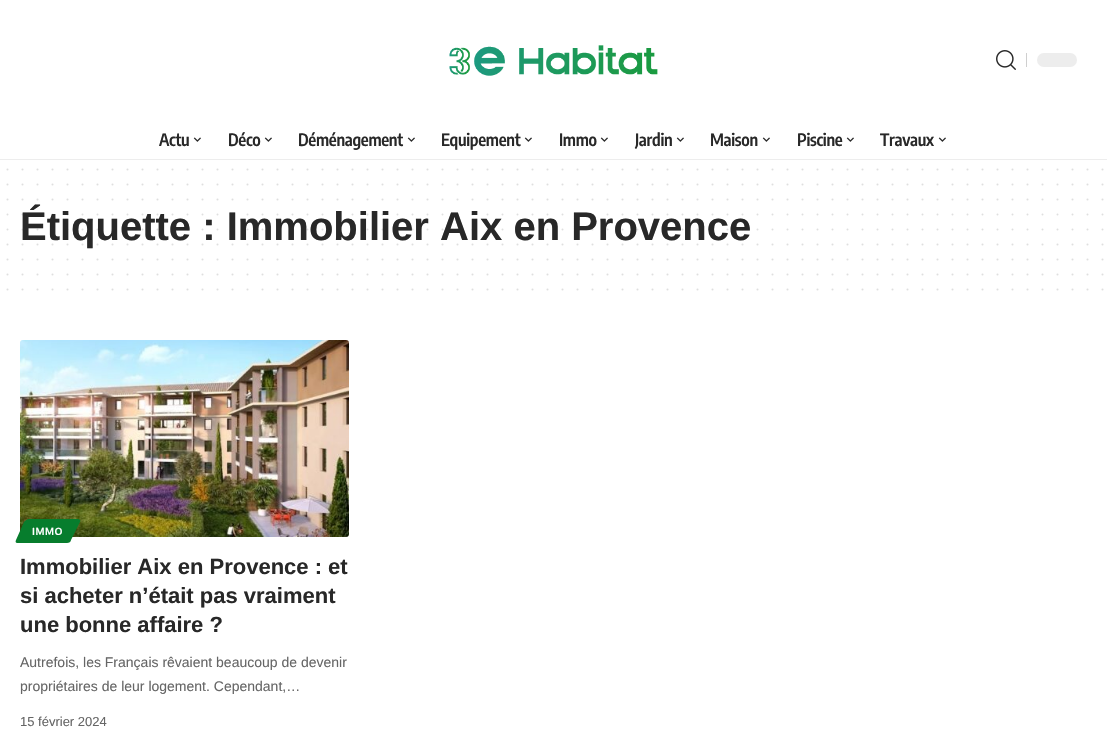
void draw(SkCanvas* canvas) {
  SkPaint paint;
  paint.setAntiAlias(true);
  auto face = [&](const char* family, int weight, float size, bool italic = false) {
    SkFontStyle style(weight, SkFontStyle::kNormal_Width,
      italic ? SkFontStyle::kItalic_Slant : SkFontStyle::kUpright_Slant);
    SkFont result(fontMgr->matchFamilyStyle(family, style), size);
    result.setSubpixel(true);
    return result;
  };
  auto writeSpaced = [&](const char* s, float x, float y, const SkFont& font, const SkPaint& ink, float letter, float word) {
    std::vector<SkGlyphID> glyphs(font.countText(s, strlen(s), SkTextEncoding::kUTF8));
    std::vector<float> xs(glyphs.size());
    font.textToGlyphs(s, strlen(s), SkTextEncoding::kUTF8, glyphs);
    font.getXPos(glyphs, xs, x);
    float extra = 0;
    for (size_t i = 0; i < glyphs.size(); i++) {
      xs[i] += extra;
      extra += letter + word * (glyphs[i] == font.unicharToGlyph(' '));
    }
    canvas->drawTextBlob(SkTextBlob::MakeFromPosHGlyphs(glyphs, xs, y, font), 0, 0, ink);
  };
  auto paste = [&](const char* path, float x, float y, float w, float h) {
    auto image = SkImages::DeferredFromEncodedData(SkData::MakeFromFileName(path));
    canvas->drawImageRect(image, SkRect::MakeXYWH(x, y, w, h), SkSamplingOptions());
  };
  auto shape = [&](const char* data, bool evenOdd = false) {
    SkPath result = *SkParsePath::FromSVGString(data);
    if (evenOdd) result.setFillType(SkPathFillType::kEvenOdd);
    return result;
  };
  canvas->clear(0xffffffff);
  paste("img/1.png", 449, 45, 209, 31);
  paste("img/2.png", 996, 50, 20, 20);
  paint.setColor(0xffcfcfcf);
  canvas->drawRect(SkRect::MakeXYWH(1026, 53, 1, 14), paint);
  paint.setColor(0xffededed);
  canvas->drawRoundRect(SkRect::MakeXYWH(1037, 53, 40, 14), 7, 7, paint);
  paste("img/3.png", 193, 137, 8, 5);
  paste("img/3.png", 264, 137, 8, 5);
  paste("img/3.png", 407, 137, 8, 5);
  paste("img/3.png", 524, 137, 8, 5);
  paste("img/3.png", 600, 137, 8, 5);
  paste("img/3.png", 676, 137, 8, 5);
  paste("img/3.png", 762, 137, 8, 5);
  paste("img/3.png", 846, 137, 8, 5);
  paste("img/3.png", 938, 137, 8, 5);
  canvas->drawRect(SkRect::MakeXYWH(0, 159, 1107, 1), paint);
  paint.setStroke(true);
  paint.setStrokeWidth(2);
  paint.setStrokeCap(SkPaint::kRound_Cap);
  paint.setColor(0xffdfdfdf);
  paint.setPathEffect(SkDashPathEffect::Make({{0, 15}}, 0));
  canvas->drawPath(shape("M7.5 169.5H1102.7"), paint);
  paint.setPathEffect(nullptr);
  paint.setPathEffect(SkDashPathEffect::Make({{0, 15}}, 0));
  canvas->drawPath(shape("M7.5 184.5H1102.7"), paint);
  paint.setPathEffect(nullptr);
  paint.setPathEffect(SkDashPathEffect::Make({{0, 15}}, 0));
  canvas->drawPath(shape("M7.5 199.5H1102.7"), paint);
  paint.setPathEffect(nullptr);
  paint.setPathEffect(SkDashPathEffect::Make({{0, 15}}, 0));
  canvas->drawPath(shape("M7.5 259.5H1102.7"), paint);
  paint.setPathEffect(nullptr);
  paint.setPathEffect(SkDashPathEffect::Make({{0, 15}}, 0));
  canvas->drawPath(shape("M7.5 274.5H1102.7"), paint);
  paint.setPathEffect(nullptr);
  paint.setPathEffect(SkDashPathEffect::Make({{0, 15}}, 0));
  canvas->drawPath(shape("M7.5 289.5H1102.7"), paint);
  paint.setPathEffect(nullptr);
  paste("img/4.png", 20, 340, 329, 197);
  paint.setStroke(false);
  paint.setColor(0xff077d2d);
  canvas->drawPath(shape("M29 519H78C80 519 81 521 80 522L71 540C71 542 69 543 67 543H17C16 543 15 542 16 540L24 522C25 521 27 519 29 519Z"), paint);
  auto f0 = face("Encode Sans Condensed", 600, 17);
  paint.setColor(0xff282828);
  {
    const struct { const char* s; float x, y; } items[] = {
      {"Actu", 159, 146},
      {"Déco", 228, 146},
      {"Déménagement", 298, 146},
      {"Equipement", 441, 146},
      {"Immo", 559, 146},
      {"Jardin", 635, 146},
      {"Maison", 710, 146},
      {"Piscine", 797, 146},
      {"Travaux", 880, 146},
    };
    for (auto [s, x, y] : items) {
      writeSpaced(s, x, y, f0, paint, -0.3f, 0);
    }
  }
  auto f1 = face("Liberation Sans", 700, 40);
  canvas->drawString("Étiquette : Immobilier Aix en Provence", 20, 240, f1, paint);
  paint.setStroke(true);
  paint.setColor(0xffdfdfdf);
  paint.setPathEffect(SkDashPathEffect::Make({{0, 15}}, 0));
  canvas->drawPath(shape("M7.5 244.5H1102.7"), paint);
  paint.setPathEffect(nullptr);
  paint.setColor(0x26282828);
  paint.setPathEffect(SkDashPathEffect::Make({{0, 15}}, 0));
  canvas->drawPath(shape("M7.5 229.5H1102.7"), paint);
  paint.setPathEffect(nullptr);
  paint.setPathEffect(SkDashPathEffect::Make({{0, 15}}, 0));
  canvas->drawPath(shape("M7.5 214.5H1102.7"), paint);
  paint.setPathEffect(nullptr);
  auto f2 = face("Oxygen", 700, 10);
  paint.setStroke(false);
  paint.setColor(0xffffffff);
  writeSpaced("IMMO", 32, 535, f2, paint, 0.5f, 0);
  auto f3 = face("Liberation Sans", 700, 22);
  paint.setColor(0xff282828);
  {
    const struct { const char* s; float x, y; } items[] = {
      {"Immobilier Aix en Provence : et", 20, 574},
      {"si acheter n’était pas vraiment", 20, 603},
      {"une bonne affaire ?", 20, 632},
    };
    for (auto [s, x, y] : items) {
      canvas->drawString(s, x, y, f3, paint);
    }
  }
  auto f4 = face("Liberation Sans", 400, 14);
  paint.setColor(0xff666666);
  canvas->drawString("Autrefois, les Français rêvaient beaucoup de devenir", 20, 667, f4, paint);
  canvas->drawString("propriétaires de leur logement. Cependant,…", 20, 691, f4, paint);
  auto f5 = face("Liberation Sans", 400, 13);
  canvas->drawString("15 février 2024", 20, 726, f5, paint);
}
